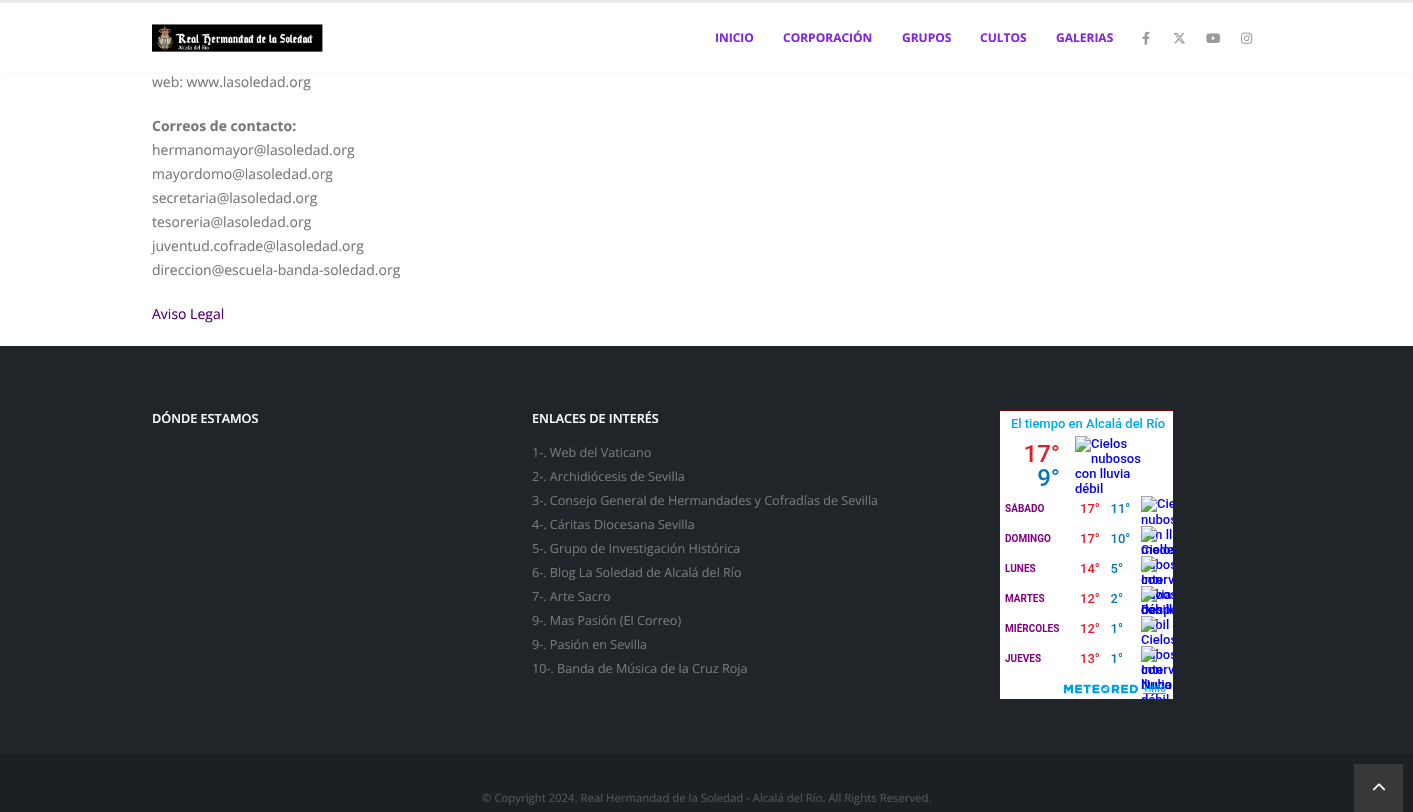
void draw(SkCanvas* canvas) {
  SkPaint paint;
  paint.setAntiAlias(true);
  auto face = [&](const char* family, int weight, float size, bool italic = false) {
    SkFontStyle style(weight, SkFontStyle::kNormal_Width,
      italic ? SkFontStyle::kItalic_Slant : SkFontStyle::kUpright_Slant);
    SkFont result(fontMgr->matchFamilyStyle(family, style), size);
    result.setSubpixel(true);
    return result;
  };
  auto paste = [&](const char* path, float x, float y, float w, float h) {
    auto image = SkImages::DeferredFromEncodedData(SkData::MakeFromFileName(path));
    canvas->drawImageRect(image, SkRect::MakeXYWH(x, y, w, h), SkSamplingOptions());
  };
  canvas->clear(0xffffffff);
  paint.setColor(0x0f000000);
  paint.setMaskFilter(SkMaskFilter::MakeBlur(kNormal_SkBlurStyle, 1.5f));
  canvas->drawRect(SkRect::MakeXYWH(0, 0, 1413, 73), paint);
  paint.setMaskFilter(nullptr);
  paint.setColor(0xffffffff);
  canvas->drawRect(SkRect::MakeXYWH(0, 3, 1413, 70), paint);
  paint.setColor(0xffededed);
  canvas->drawRect(SkRect::MakeXYWH(0, 0, 1413, 3), paint);
  paste("img/1.png", 152, 24, 171, 28);
  paste("img/2.png", 1142, 31, 8, 14);
  paste("img/3.png", 1173, 33, 12, 11);
  paste("img/4.png", 1206, 33, 14, 10);
  paste("img/5.png", 1241, 32, 12, 12);
  paint.setColor(0xff212529);
  canvas->drawRect(SkRect::MakeXYWH(0, 346, 1413, 408), paint);
  paint.setColor(0xffffffff);
  canvas->drawRect(SkRect::MakeXYWH(999.5f, 410.5f, 174, 289), paint);
  paint.setStroke(true);
  paint.setStrokeWidth(1);
  paint.setColor(0xff800000);
  canvas->drawRect(SkRect::MakeXYWH(999.5f, 410.5f, 174, 289), paint);
  paste("img/6.png", 1005, 418, 168, 281);
  paint.setStroke(false);
  paint.setColor(0xff1c2023);
  canvas->drawRect(SkRect::MakeXYWH(0, 754, 1413, 58), paint);
  paint.setColor(0xff373839);
  canvas->drawRect(SkRect::MakeXYWH(1354, 764, 49, 48), paint);
  paste("img/7.png", 1372, 783, 14, 8);
  auto f0 = face("Open Sans", 700, 12);
  paint.setColor(0xff8224e3);
  {
    const struct { const char* s; float x, y; } items[] = {
      {"INICIO", 715, 42},
      {"CORPORACIÓN", 783, 42},
      {"GRUPOS", 902, 42},
      {"CULTOS", 980, 42},
      {"GALERIAS", 1056, 42},
    };
    for (auto [s, x, y] : items) {
      canvas->drawString(s, x, y, f0, paint);
    }
  }
  auto f1 = face("Open Sans", 400, 14);
  paint.setColor(0xff777777);
  canvas->drawString("web: www.lasoledad.org", 152, 87, f1, paint);
  auto f2 = face("Open Sans", 700, 14);
  canvas->drawString("Correos de contacto:", 152, 131, f2, paint);
  {
    const struct { const char* s; float x, y; } items[] = {
      {"hermanomayor@lasoledad.org", 152, 155},
      {"mayordomo@lasoledad.org", 152, 179},
      {"secretaria@lasoledad.org", 152, 203},
      {"tesoreria@lasoledad.org", 152, 227},
      {"juventud.cofrade@lasoledad.org", 152, 251},
      {"direccion@escuela-banda-soledad.org", 152, 275},
    };
    for (auto [s, x, y] : items) {
      canvas->drawString(s, x, y, f1, paint);
    }
  }
  paint.setColor(0xff520070);
  canvas->drawString("Aviso Legal", 152, 319, f1, paint);
  auto f3 = face("Open Sans", 600, 12.6f);
  paint.setColor(0xffffffff);
  canvas->drawString("DÓNDE ESTAMOS", 152, 423, f3, paint);
  canvas->drawString("ENLACES DE INTERÉS", 532, 423, f3, paint);
  auto f4 = face("Open Sans", 400, 12.6f);
  paint.setColor(0xff777777);
  {
    const struct { const char* s; float x, y; } items[] = {
      {"1-. Web del Vaticano", 532, 457},
      {"2-. Archidiócesis de Sevilla", 532, 481},
      {"3-. Consejo General de Hermandades y Cofradías de Sevilla", 532, 505},
      {"4-. Cáritas Diocesana Sevilla", 532, 529},
      {"5-. Grupo de Investigación Histórica", 532, 553},
      {"6-. Blog La Soledad de Alcalá del Río", 532, 577},
      {"7-. Arte Sacro", 532, 601},
      {"9-. Mas Pasión (El Correo)", 532, 625},
      {"9-. Pasión en Sevilla", 532, 649},
      {"10-. Banda de Música de la Cruz Roja", 532, 673},
    };
    for (auto [s, x, y] : items) {
      canvas->drawString(s, x, y, f4, paint);
    }
  }
  auto f5 = face("Open Sans", 400, 11.35f);
  paint.setColor(0xff555555);
  canvas->drawString("© Copyright 2024. Real Hermandad de la Soledad - Alcalá del Río. All Rights Reserved.", 482, 802, f5, paint);
}
